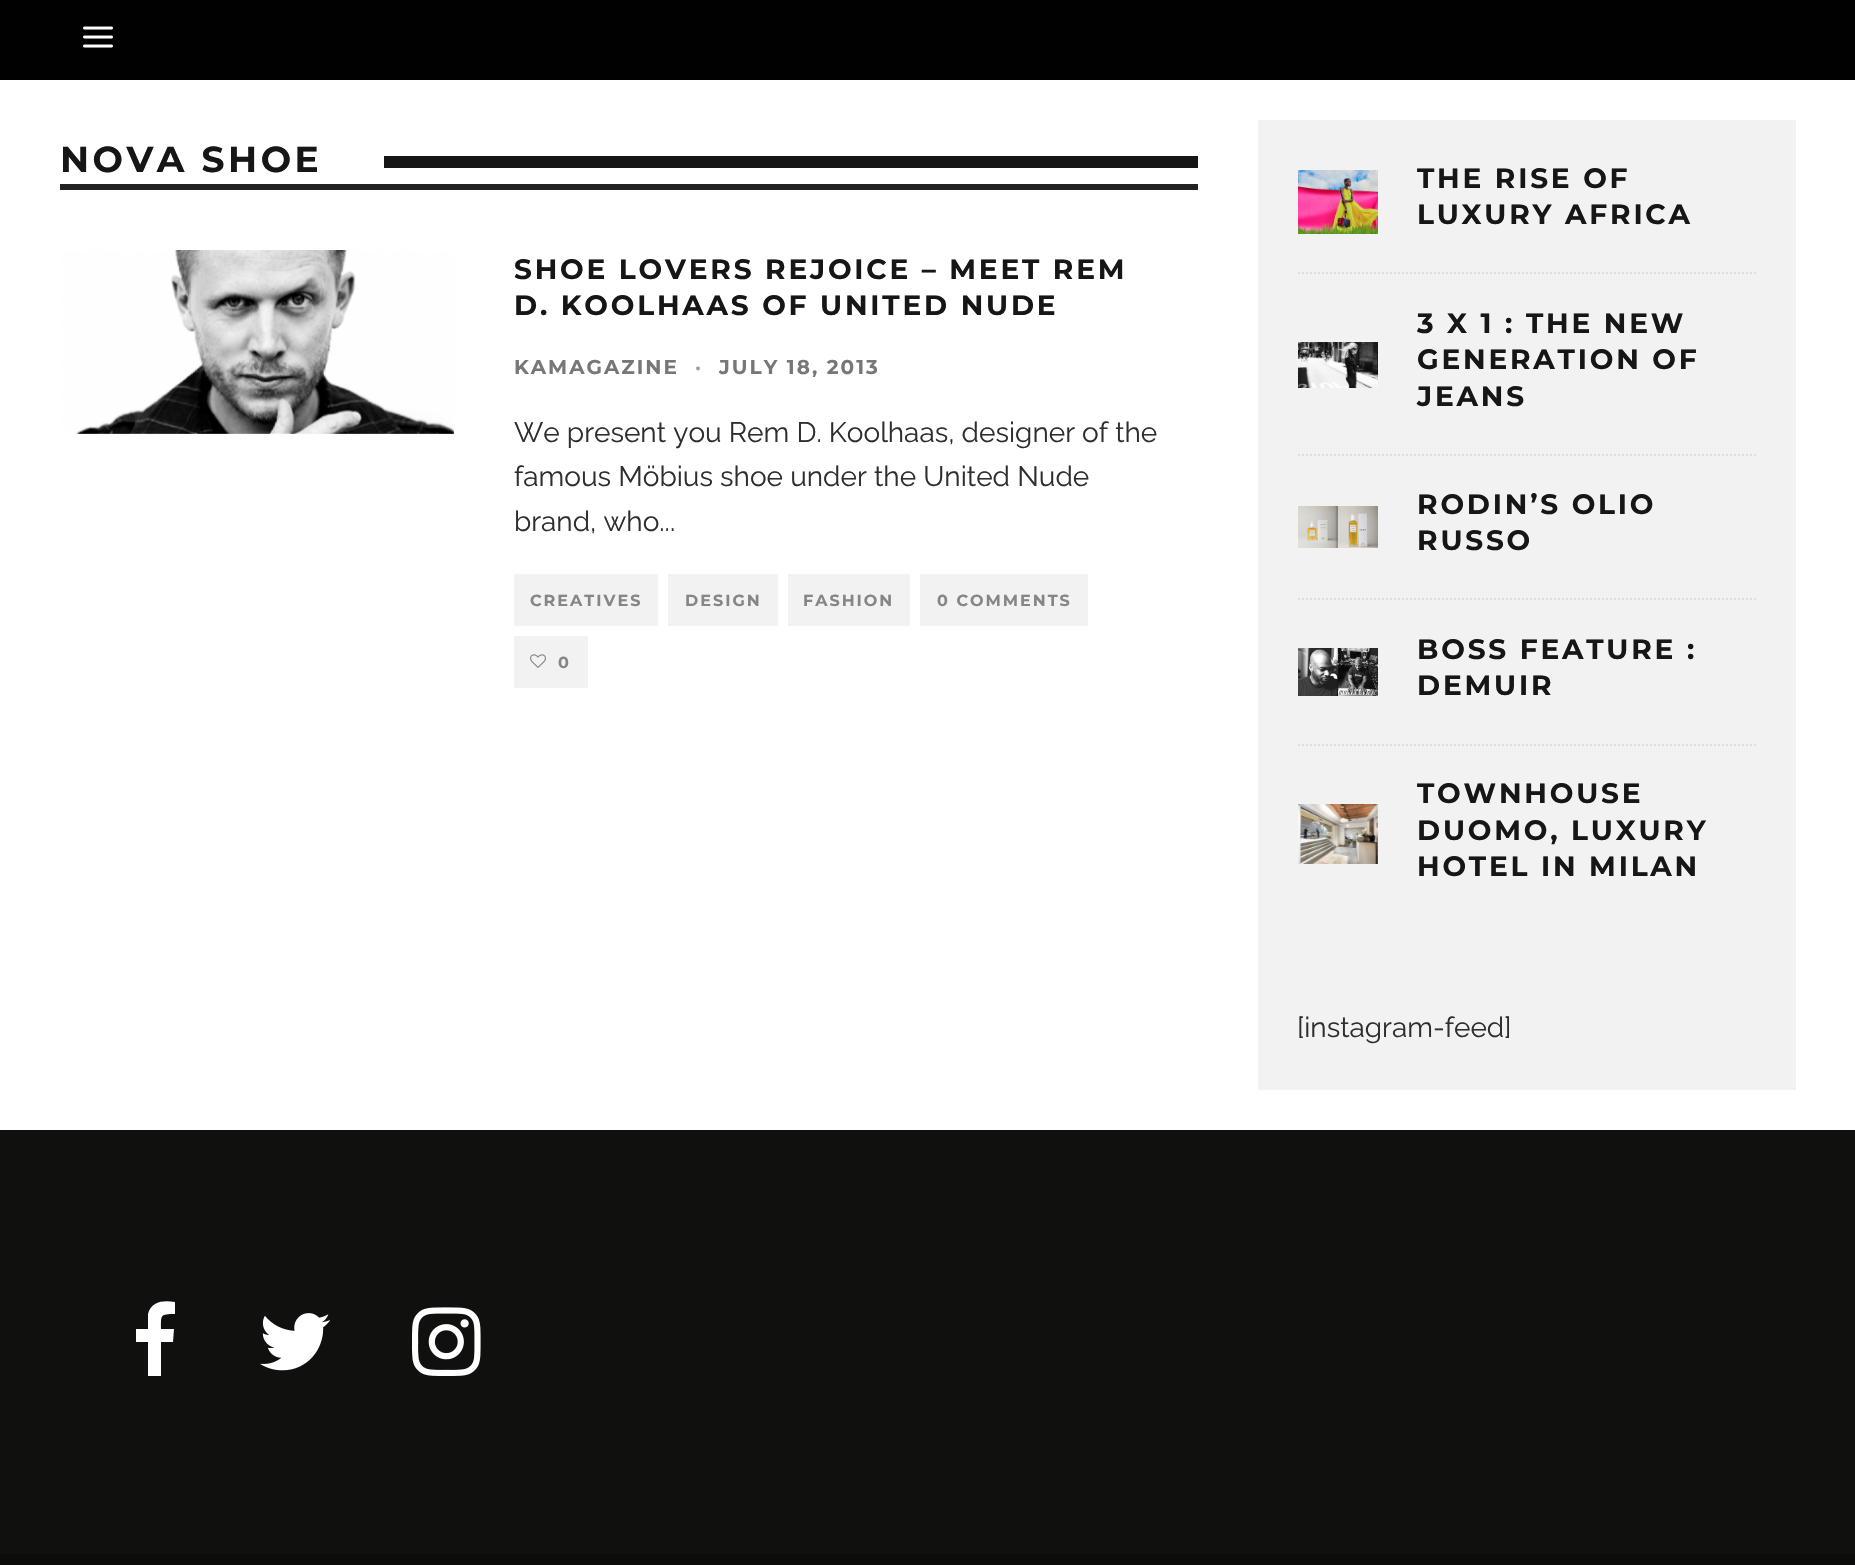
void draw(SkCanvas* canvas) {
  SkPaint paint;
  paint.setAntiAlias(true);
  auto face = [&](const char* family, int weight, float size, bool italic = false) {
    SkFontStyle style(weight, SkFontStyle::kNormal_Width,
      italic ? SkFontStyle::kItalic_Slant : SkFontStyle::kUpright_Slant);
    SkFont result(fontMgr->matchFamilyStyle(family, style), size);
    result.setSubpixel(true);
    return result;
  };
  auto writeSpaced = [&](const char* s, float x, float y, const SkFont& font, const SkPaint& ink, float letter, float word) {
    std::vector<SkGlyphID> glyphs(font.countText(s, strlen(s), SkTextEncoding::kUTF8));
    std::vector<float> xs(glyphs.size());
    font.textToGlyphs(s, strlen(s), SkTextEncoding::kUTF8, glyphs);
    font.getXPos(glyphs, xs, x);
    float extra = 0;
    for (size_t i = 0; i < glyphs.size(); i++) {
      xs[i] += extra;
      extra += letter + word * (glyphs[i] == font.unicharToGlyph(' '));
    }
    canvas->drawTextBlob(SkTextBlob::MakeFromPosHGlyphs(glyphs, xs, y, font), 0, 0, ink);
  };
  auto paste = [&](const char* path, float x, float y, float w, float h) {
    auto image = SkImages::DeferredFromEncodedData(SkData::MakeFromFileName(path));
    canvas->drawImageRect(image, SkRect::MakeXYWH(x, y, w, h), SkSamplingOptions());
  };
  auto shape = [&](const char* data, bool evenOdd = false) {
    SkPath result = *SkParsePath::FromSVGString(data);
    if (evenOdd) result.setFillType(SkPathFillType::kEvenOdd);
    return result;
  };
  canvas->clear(0xffffffff);
  paint.setColor(0xff010101);
  canvas->drawRect(SkRect::MakeXYWH(0, 0, 1855, 80), paint);
  paste("img/1.png", 83, 26, 30, 22);
  paint.setColor(0xff222222);
  canvas->drawRect(SkRect::MakeXYWH(60, 184, 1138, 6), paint);
  paint.setColor(0xff161616);
  canvas->drawRect(SkRect::MakeXYWH(384, 156, 814, 12), paint);
  paste("img/2.png", 60, 250, 394, 184);
  {
    const struct { float x, y, w, h; SkColor color; } items[] = {
      {514, 574, 144, 52, 0xfff2f2f2},
      {668, 574, 110, 52, 0xfff2f2f2},
      {788, 574, 122, 52, 0xfff2f2f2},
      {920, 574, 168, 52, 0xfff2f2f2},
      {514, 636, 74, 52, 0xfff2f2f2},
    };
    for (auto [x, y, w, h, color] : items) {
      paint.setColor(color);
      canvas->drawRect(SkRect::MakeXYWH(x, y, w, h), paint);
    }
  }
  paste("img/3.png", 530, 654, 16, 14);
  canvas->drawRect(SkRect::MakeXYWH(1258, 120, 538, 970), paint);
  paint.setStroke(true);
  paint.setStrokeWidth(2);
  paint.setColor(0xffdddddd);
  paint.setPathEffect(SkDashPathEffect::Make({{2, 2}}, 0));
  canvas->drawPath(shape("M1298 273H1756"), paint);
  paint.setPathEffect(nullptr);
  paste("img/4.png", 1298, 170, 80, 64);
  paint.setPathEffect(SkDashPathEffect::Make({{2, 2}}, 0));
  canvas->drawPath(shape("M1298 455H1756"), paint);
  paint.setPathEffect(nullptr);
  paste("img/5.png", 1298, 342, 80, 46);
  paint.setPathEffect(SkDashPathEffect::Make({{2, 2}}, 0));
  canvas->drawPath(shape("M1298 599H1756"), paint);
  paint.setPathEffect(nullptr);
  paste("img/6.png", 1298, 506, 80, 42);
  paint.setPathEffect(SkDashPathEffect::Make({{2, 2}}, 0));
  canvas->drawPath(shape("M1298 745H1756"), paint);
  paint.setPathEffect(nullptr);
  paste("img/7.png", 1298, 648, 80, 48);
  paste("img/8.png", 1298, 804, 80, 60);
  paint.setStroke(false);
  paint.setColor(0xff10100f);
  canvas->drawRect(SkRect::MakeXYWH(0, 1130, 1855, 424), paint);
  paint.setColor(0xffffffff);
  canvas->drawPath(shape("M175 1302V1314C160 1314 161 1315 161 1329H174L173 1342H161V1376H148V1342H136V1329H148V1314C151 1301 164 1300 175 1302Z"), paint);
  paste("img/9.png", 260, 1313, 71, 58);
  paste("img/10.png", 412, 1307, 69, 69);
  paint.setColor(0xff0c0c0b);
  canvas->drawRect(SkRect::MakeXYWH(0, 1554, 1855, 11), paint);
  auto f0 = face("Montserrat", 700, 36);
  paint.setColor(0xff161616);
  writeSpaced("NOVA SHOE", 60, 172, f0, paint, 3.5f, 0);
  auto f1 = face("Montserrat", 700, 28);
  writeSpaced("SHOE LOVERS REJOICE – MEET REM", 514, 279, f1, paint, 2.8f, 0);
  writeSpaced("D. KOOLHAAS OF UNITED NUDE", 514, 315, f1, paint, 2.8f, 0);
  auto f2 = face("Montserrat", 700, 20);
  paint.setColor(0xff777777);
  writeSpaced("KAMAGAZINE", 514, 374, f2, paint, 2, 0);
  paint.setColor(0xffa0a0a0);
  writeSpaced("·", 695, 374, f2, paint, 2, 0);
  paint.setColor(0xff777777);
  writeSpaced("JULY 18, 2013", 719, 374, f2, paint, 2, 0);
  auto f3 = face("Raleway", 400, 28);
  paint.setColor(0xff2e2e2e);
  {
    const struct { const char* s; float x, y; } items[] = {
      {"We present you Rem D. Koolhaas, designer of the", 514, 442},
      {"famous Möbius shoe under the United Nude", 514, 486},
      {"brand, who...", 514, 531},
    };
    for (auto [s, x, y] : items) {
      canvas->drawString(s, x, y, f3, paint);
    }
  }
  auto f4 = face("Montserrat", 700, 16);
  paint.setColor(0xff868686);
  {
    const struct { const char* s; float x, y; } items[] = {
      {"CREATIVES", 530, 606},
      {"DESIGN", 685, 606},
      {"FASHION", 803, 606},
      {"0 COMMENTS", 937, 606},
      {"0", 558, 668},
    };
    for (auto [s, x, y] : items) {
      writeSpaced(s, x, y, f4, paint, 2, 0);
    }
  }
  paint.setColor(0xff161616);
  {
    const struct { const char* s; float x, y; } items[] = {
      {"THE RISE OF", 1417, 188},
      {"LUXURY AFRICA", 1417, 224},
      {"3 X 1 : THE NEW", 1417, 333},
      {"GENERATION OF", 1417, 369},
      {"JEANS", 1417, 406},
      {"RODIN’S OLIO", 1417, 514},
      {"RUSSO", 1417, 550},
      {"BOSS FEATURE :", 1417, 659},
      {"DEMUIR", 1417, 695},
      {"TOWNHOUSE", 1417, 803},
      {"DUOMO, LUXURY", 1417, 840},
      {"HOTEL IN MILAN", 1417, 876},
    };
    for (auto [s, x, y] : items) {
      writeSpaced(s, x, y, f1, paint, 2.8f, 0);
    }
  }
  paint.setColor(0xff2e2e2e);
  canvas->drawString("[instagram-feed]", 1297, 1037, f3, paint);
}
